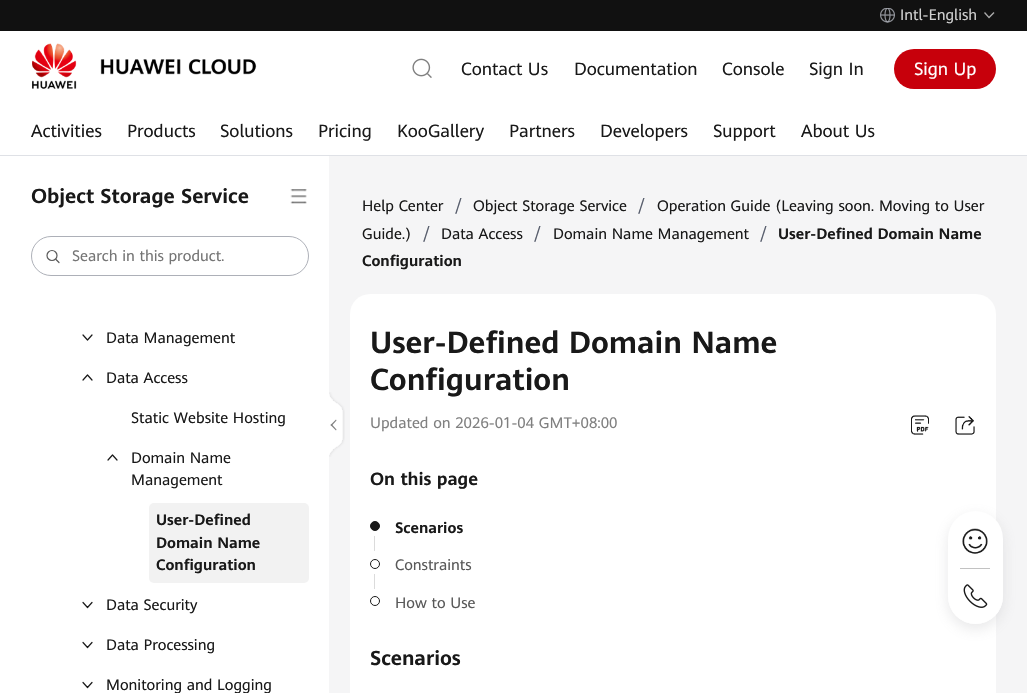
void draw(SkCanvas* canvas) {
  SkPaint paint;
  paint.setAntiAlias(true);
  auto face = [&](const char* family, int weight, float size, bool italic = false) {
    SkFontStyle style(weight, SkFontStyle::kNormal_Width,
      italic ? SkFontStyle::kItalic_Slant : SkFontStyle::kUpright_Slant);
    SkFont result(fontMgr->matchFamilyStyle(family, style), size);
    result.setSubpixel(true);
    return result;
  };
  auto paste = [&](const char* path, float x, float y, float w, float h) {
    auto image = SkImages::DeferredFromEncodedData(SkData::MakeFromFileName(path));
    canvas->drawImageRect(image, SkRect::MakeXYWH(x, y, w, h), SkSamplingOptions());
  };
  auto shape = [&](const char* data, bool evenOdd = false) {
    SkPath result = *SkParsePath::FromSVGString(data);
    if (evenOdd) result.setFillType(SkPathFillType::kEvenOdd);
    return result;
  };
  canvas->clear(0xfff5f5f6);
  paint.setColor(0xff111111);
  canvas->drawRect(SkRect::MakeXYWH(0, 0, 1027, 31), paint);
  paste("img/1.png", 880, 8, 15, 15);
  paint.setColor(0xffa9a9a9);
  canvas->drawPath(shape("M994.5 13L989 18.5V16.5L993.5 12ZM989 18.5L984 13L985 12L989 16.5Z"), paint);
  paint.setColor(0xffffffff);
  canvas->drawRect(SkRect::MakeXYWH(0, 31, 1027, 124), paint);
  paint.setColor(0xffdfe1e6);
  canvas->drawRect(SkRect::MakeXYWH(0, 155, 1027, 1), paint);
  paste("img/2.png", 32, 43, 225, 46);
  paste("img/3.png", 412, 58, 20, 20);
  paint.setColor(0xffc7000b);
  canvas->drawRoundRect(SkRect::MakeXYWH(894, 49, 102, 40), 20, 20, paint);
  paint.setColor(0xffffffff);
  canvas->drawRect(SkRect::MakeXYWH(0, 156, 329, 537), paint);
  paste("img/4.png", 290, 189, 17, 15);
  paint.setStroke(true);
  paint.setStrokeWidth(1);
  paint.setColor(0xffadb0b8);
  canvas->drawRoundRect(SkRect::MakeXYWH(31.5f, 236.5f, 277, 39), 19.5f, 19.5f, paint);
  paint.setStrokeWidth(1.2f);
  paint.setColor(0xff595959);
  canvas->drawCircle(52, 255.5f, 5, paint);
  paint.setStrokeCap(SkPaint::kRound_Cap);
  paint.setStrokeJoin(SkPaint::kRound_Join);
  canvas->drawPath(shape("M59 262.5L56 259.5"), paint);
  paint.setColor(0xff191919);
  canvas->drawPath(shape("M92 335L87.5 340L83 335"), paint);
  canvas->drawPath(shape("M83 380L87.5 375L92 380"), paint);
  canvas->drawPath(shape("M108 460L112.5 455L117 460"), paint);
  paint.setStroke(false);
  paint.setColor(0xfff2f2f2);
  canvas->drawRoundRect(SkRect::MakeXYWH(149, 503, 160, 80), 5, 5, paint);
  paint.setStroke(true);
  paint.setColor(0xff191919);
  canvas->drawPath(shape("M92 602.5L87.5 607.5L83 602.5"), paint);
  canvas->drawPath(shape("M92 642.5L87.5 647.5L83 642.5"), paint);
  canvas->drawPath(shape("M92 682.5L87.5 687.5L83 682.5"), paint);
  paste("img/5.png", 329, 392, 16, 65);
  paint.setStroke(false);
  paint.setColor(0xff808080);
  canvas->drawPath(shape("M330.5 425L336 419.5L336.5 420.5L331.5 426Z"), paint);
  canvas->drawPath(shape("M330.5 425L331.5 424L336.5 429.5L336 430.5Z"), paint);
  paint.setColor(0xffffffff);
  canvas->drawRoundRect(SkRect::MakeXYWH(350, 294, 646, 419), 20, 20, paint);
  paste("img/6.png", 911, 415, 18, 20);
  paste("img/7.png", 955, 416, 20, 19);
  paint.setColor(0xff191919);
  canvas->drawCircle(375, 526, 4.5f, paint);
  paint.setStroke(true);
  paint.setStrokeWidth(1);
  paint.setStrokeCap(SkPaint::kButt_Cap);
  paint.setStrokeJoin(SkPaint::kMiter_Join);
  canvas->drawCircle(375, 526, 4.5f, paint);
  paint.setStroke(false);
  paint.setColor(0xffdbdbdb);
  canvas->drawRect(SkRect::MakeXYWH(374, 536, 1, 15), paint);
  paint.setStroke(true);
  paint.setColor(0xff191919);
  canvas->drawCircle(375, 564, 4.5f, paint);
  paint.setStroke(false);
  paint.setColor(0xffdbdbdb);
  canvas->drawRect(SkRect::MakeXYWH(374, 574, 1, 15), paint);
  paint.setStroke(true);
  paint.setColor(0xff191919);
  canvas->drawCircle(375, 601, 4.5f, paint);
  paint.setStroke(false);
  paint.setColor(0x338a8d93);
  paint.setMaskFilter(SkMaskFilter::MakeBlur(kNormal_SkBlurStyle, 7));
  canvas->drawRoundRect(SkRect::MakeXYWH(948, 516, 55, 113), 27.5f, 27.5f, paint);
  paint.setMaskFilter(nullptr);
  paint.setColor(0xffffffff);
  canvas->drawRoundRect(SkRect::MakeXYWH(948, 511, 55, 113), 27.5f, 27.5f, paint);
  paste("img/8.png", 962, 528, 26, 26);
  paint.setColor(0xffc2c2c2);
  canvas->drawRect(SkRect::MakeXYWH(960, 568, 30, 1), paint);
  paint.setColor(0xffffffff);
  canvas->drawCircle(975.5f, 596.5f, 27.5f, paint);
  paste("img/9.png", 963, 584, 25, 24);
  auto f0 = face("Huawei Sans", 400, 15);
  paint.setColor(0xffcfcfcf);
  canvas->drawString("Intl-English", 900, 20, f0, paint);
  auto f1 = face("Huawei Sans", 400, 17.5f);
  paint.setColor(0xff191919);
  {
    const struct { const char* s; float x, y; } items[] = {
      {"Contact Us", 461, 75},
      {"Documentation", 574, 75},
      {"Console", 722, 75},
      {"Sign In", 809, 75},
    };
    for (auto [s, x, y] : items) {
      canvas->drawString(s, x, y, f1, paint);
    }
  }
  paint.setColor(0xffffffff);
  canvas->drawString("Sign Up", 914, 75, f1, paint);
  paint.setColor(0xff191919);
  {
    const struct { const char* s; float x, y; } items[] = {
      {"Activities", 31, 137},
      {"Products", 127, 137},
      {"Solutions", 220, 137},
      {"Pricing", 318, 137},
      {"KooGallery", 397, 137},
      {"Partners", 509, 137},
      {"Developers", 600, 137},
      {"Support", 713, 137},
      {"About Us", 801, 137},
    };
    for (auto [s, x, y] : items) {
      canvas->drawString(s, x, y, f1, paint);
    }
  }
  auto f2 = face("Huawei Sans", 700, 20);
  canvas->drawString("Object Storage Service", 31, 203, f2, paint);
  paint.setColor(0xff757575);
  canvas->drawString("Search in this product.", 72, 261, f0, paint);
  paint.setColor(0xff191919);
  {
    const struct { const char* s; float x, y; } items[] = {
      {"Data Management", 106, 343},
      {"Data Access", 106, 383},
      {"Static Website Hosting", 131, 423},
      {"Domain Name", 131, 463},
      {"Management", 131, 485},
    };
    for (auto [s, x, y] : items) {
      canvas->drawString(s, x, y, f0, paint);
    }
  }
  auto f3 = face("Huawei Sans", 700, 15);
  {
    const struct { const char* s; float x, y; } items[] = {
      {"User-Defined", 156, 525},
      {"Domain Name", 156, 548},
      {"Configuration", 156, 570},
    };
    for (auto [s, x, y] : items) {
      canvas->drawString(s, x, y, f3, paint);
    }
  }
  {
    const struct { const char* s; float x, y; } items[] = {
      {"Data Security", 106, 610},
      {"Data Processing", 106, 650},
      {"Monitoring and Logging", 106, 690},
      {"Help Center", 362, 211},
    };
    for (auto [s, x, y] : items) {
      canvas->drawString(s, x, y, f0, paint);
    }
  }
  paint.setColor(0xff575d6c);
  canvas->drawString("/", 455, 211, f1, paint);
  paint.setColor(0xff191919);
  canvas->drawString("Object Storage Service", 473, 211, f0, paint);
  paint.setColor(0xff575d6c);
  canvas->drawString("/", 638, 211, f1, paint);
  paint.setColor(0xff191919);
  canvas->drawString("Operation Guide (Leaving soon. Moving to User", 657, 211, f0, paint);
  canvas->drawString("Guide.)", 362, 239, f0, paint);
  paint.setColor(0xff575d6c);
  canvas->drawString("/", 423, 239, f1, paint);
  paint.setColor(0xff191919);
  canvas->drawString("Data Access", 441, 239, f0, paint);
  paint.setColor(0xff575d6c);
  canvas->drawString("/", 534, 239, f1, paint);
  paint.setColor(0xff191919);
  canvas->drawString("Domain Name Management", 553, 239, f0, paint);
  paint.setColor(0xff575d6c);
  canvas->drawString("/", 760, 239, f1, paint);
  paint.setColor(0xff191919);
  canvas->drawString("User-Defined Domain Name", 778, 239, f3, paint);
  canvas->drawString("Configuration", 362, 266, f3, paint);
  auto f4 = face("Huawei Sans", 700, 30);
  canvas->drawString("User-Defined Domain Name", 370, 353, f4, paint);
  canvas->drawString("Configuration", 370, 390, f4, paint);
  paint.setColor(0xff808080);
  canvas->drawString("Updated on 2026-01-04 GMT+08:00", 370, 428, f0, paint);
  auto f5 = face("Huawei Sans", 700, 17.5f);
  paint.setColor(0xff191919);
  canvas->drawString("On this page", 370, 485, f5, paint);
  canvas->drawString("Scenarios", 395, 533, f3, paint);
  paint.setColor(0xff595959);
  canvas->drawString("Constraints", 395, 570, f0, paint);
  canvas->drawString("How to Use", 395, 608, f0, paint);
  paint.setColor(0xff191919);
  canvas->drawString("Scenarios", 370, 665, f2, paint);
}
